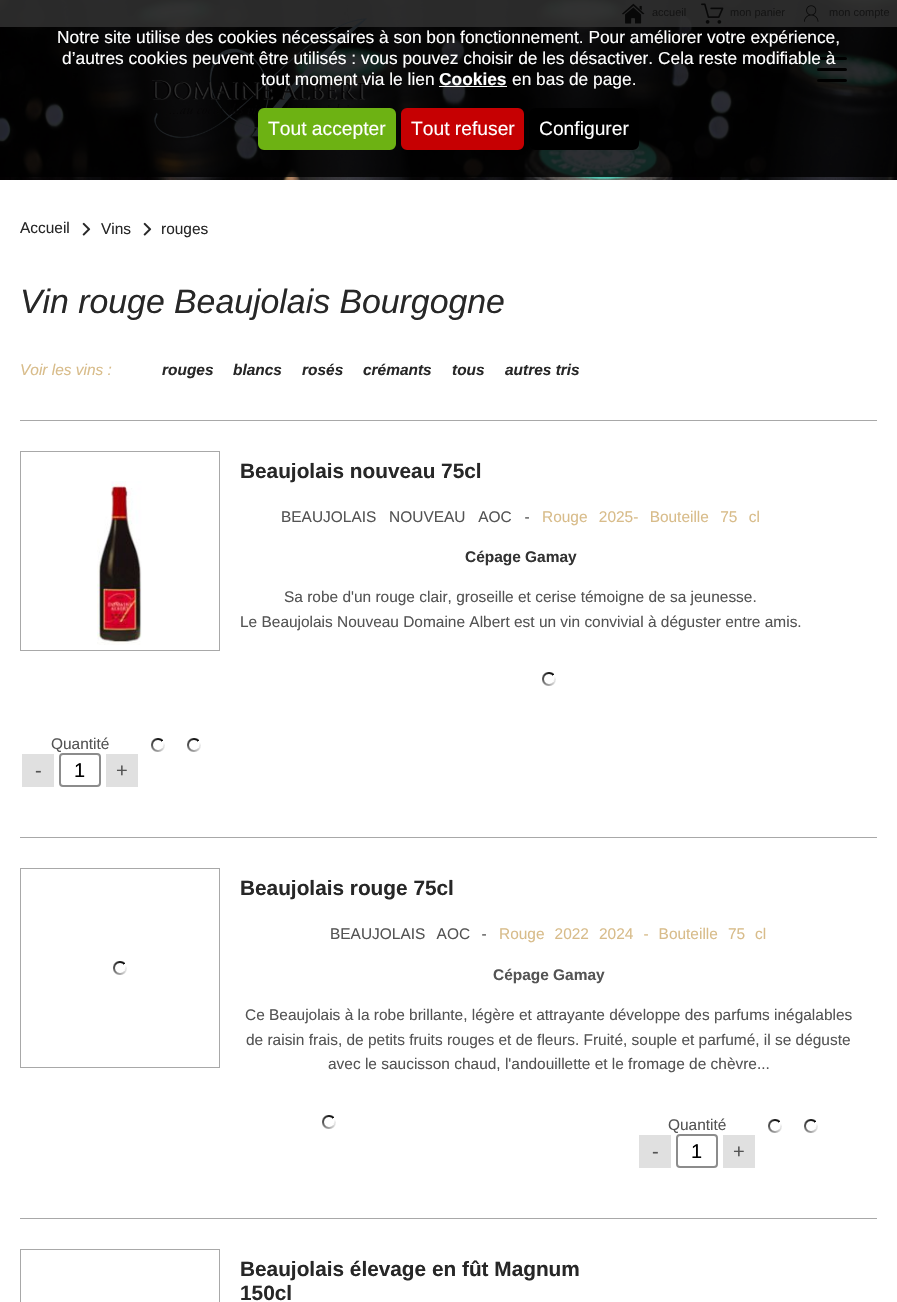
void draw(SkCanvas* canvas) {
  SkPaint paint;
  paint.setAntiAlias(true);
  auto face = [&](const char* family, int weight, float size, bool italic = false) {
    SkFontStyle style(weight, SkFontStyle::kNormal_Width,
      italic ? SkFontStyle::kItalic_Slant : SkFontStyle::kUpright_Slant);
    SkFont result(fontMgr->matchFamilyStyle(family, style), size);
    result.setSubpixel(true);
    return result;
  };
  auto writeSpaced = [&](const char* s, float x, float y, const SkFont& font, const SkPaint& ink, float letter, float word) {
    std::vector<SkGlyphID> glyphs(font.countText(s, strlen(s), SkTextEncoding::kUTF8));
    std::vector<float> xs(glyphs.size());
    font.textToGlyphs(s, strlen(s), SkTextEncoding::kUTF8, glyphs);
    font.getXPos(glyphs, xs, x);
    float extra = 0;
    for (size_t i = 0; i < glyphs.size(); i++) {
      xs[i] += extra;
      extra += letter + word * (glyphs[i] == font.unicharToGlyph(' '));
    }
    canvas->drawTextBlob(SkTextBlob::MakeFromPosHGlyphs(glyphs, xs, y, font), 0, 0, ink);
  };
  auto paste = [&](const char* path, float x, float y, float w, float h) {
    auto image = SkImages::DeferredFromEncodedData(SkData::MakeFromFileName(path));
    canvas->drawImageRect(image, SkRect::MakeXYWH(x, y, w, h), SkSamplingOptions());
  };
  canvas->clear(0xffffffff);
  paste("img/1.png", 0, 0, 897, 180);
  paint.setColor(0xcc333333);
  canvas->drawRect(SkRect::MakeXYWH(0, 0, 897, 27), paint);
  paste("img/2.png", 622, 3, 23, 21);
  paste("img/3.png", 701, 3, 23, 21);
  paste("img/4.png", 804, 5, 15, 17);
  paste("img/5.png", 152, 18, 217, 120);
  paint.setColor(0xff000000);
  canvas->drawRoundRect(SkRect::MakeXYWH(817, 57, 30, 3), 1.5f, 1.5f, paint);
  canvas->drawRoundRect(SkRect::MakeXYWH(817, 68, 30, 3), 1.5f, 1.5f, paint);
  canvas->drawRoundRect(SkRect::MakeXYWH(817, 79, 30, 3), 1.5f, 1.5f, paint);
  paste("img/6.png", 82, 222, 9, 14);
  paste("img/6.png", 143, 222, 9, 14);
  paint.setColor(0xffa8a8a8);
  canvas->drawRect(SkRect::MakeXYWH(20, 420, 857, 1), paint);
  paint.setStroke(true);
  paint.setStrokeWidth(1);
  canvas->drawRect(SkRect::MakeXYWH(20.5f, 451.5f, 199, 199), paint);
  paste("img/7.png", 97, 481, 45, 164);
  paste("img/8.png", 542, 672, 14, 14);
  paint.setStroke(false);
  paint.setColor(0xffe0e0e0);
  canvas->drawRect(SkRect::MakeXYWH(22, 754, 32, 33), paint);
  paint.setStroke(true);
  paint.setStrokeWidth(2);
  paint.setColor(0xff8c8c8c);
  canvas->drawRoundRect(SkRect::MakeXYWH(60, 754, 40, 32), 3, 3, paint);
  paint.setStroke(false);
  paint.setColor(0xffe0e0e0);
  canvas->drawRect(SkRect::MakeXYWH(106, 754, 32, 33), paint);
  paste("img/8.png", 151, 738, 14, 14);
  paste("img/8.png", 187, 738, 14, 14);
  paint.setColor(0xffa8a8a8);
  canvas->drawRect(SkRect::MakeXYWH(20, 837, 857, 1), paint);
  paste("img/8.png", 113, 961, 14, 14);
  paint.setStroke(true);
  paint.setStrokeWidth(1);
  canvas->drawRect(SkRect::MakeXYWH(20.5f, 868.5f, 199, 199), paint);
  paste("img/8.png", 322, 1115, 14, 14);
  paint.setStroke(false);
  paint.setColor(0xffe0e0e0);
  canvas->drawRect(SkRect::MakeXYWH(639, 1135, 32, 33), paint);
  paint.setStroke(true);
  paint.setStrokeWidth(2);
  paint.setColor(0xff8c8c8c);
  canvas->drawRoundRect(SkRect::MakeXYWH(677, 1135, 40, 32), 3, 3, paint);
  paint.setStroke(false);
  paint.setColor(0xffe0e0e0);
  canvas->drawRect(SkRect::MakeXYWH(723, 1135, 32, 33), paint);
  paste("img/8.png", 768, 1119, 14, 14);
  paste("img/8.png", 804, 1119, 14, 14);
  paint.setColor(0xffa8a8a8);
  canvas->drawRect(SkRect::MakeXYWH(20, 1218, 857, 1), paint);
  paint.setStroke(true);
  paint.setStrokeWidth(1);
  canvas->drawRect(SkRect::MakeXYWH(20.5f, 1249.5f, 199, 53), paint);
  paint.setStroke(false);
  paint.setColor(0xffffffff);
  canvas->drawRect(SkRect::MakeXYWH(439, 86, 68, 1), paint);
  paint.setColor(0xff6db213);
  canvas->drawRoundRect(SkRect::MakeXYWH(259, 109, 136, 40), 5, 5, paint);
  paint.setStroke(true);
  paint.setStrokeWidth(2);
  canvas->drawRoundRect(SkRect::MakeXYWH(259, 109, 136, 40), 5, 5, paint);
  paint.setStroke(false);
  paint.setColor(0xffc60002);
  canvas->drawRoundRect(SkRect::MakeXYWH(402, 109, 121, 40), 5, 5, paint);
  paint.setStroke(true);
  canvas->drawRoundRect(SkRect::MakeXYWH(402, 109, 121, 40), 5, 5, paint);
  paint.setStroke(false);
  paint.setColor(0xff000000);
  canvas->drawRoundRect(SkRect::MakeXYWH(530, 109, 108, 40), 5, 5, paint);
  paint.setStroke(true);
  canvas->drawRoundRect(SkRect::MakeXYWH(530, 109, 108, 40), 5, 5, paint);
  auto f0 = face("Liberation Sans", 400, 11);
  paint.setStroke(false);
  paint.setColor(0xff141414);
  {
    const struct { const char* s; float x, y; } items[] = {
      {"accueil", 652, 16},
      {"mon panier", 730, 16},
      {"mon compte", 829, 16},
    };
    for (auto [s, x, y] : items) {
      canvas->drawString(s, x, y, f0, paint);
    }
  }
  auto f1 = face("Liberation Sans", 400, 15.45f);
  paint.setColor(0xff272727);
  {
    const struct { const char* s; float x, y; } items[] = {
      {"Accueil", 20, 233},
      {"Vins", 101, 234},
      {"rouges", 161, 234},
    };
    for (auto [s, x, y] : items) {
      canvas->drawString(s, x, y, f1, paint);
    }
  }
  auto f2 = face("Liberation Sans", 400, 33.8f, true);
  canvas->drawString("Vin rouge Beaujolais Bourgogne", 20, 313, f2, paint);
  auto f3 = face("Liberation Sans", 400, 15.45f, true);
  paint.setColor(0xffd8bc8a);
  canvas->drawString("Voir les vins :", 20, 375, f3, paint);
  auto f4 = face("Liberation Sans", 700, 15.45f, true);
  paint.setColor(0xff272727);
  {
    const struct { const char* s; float x, y; } items[] = {
      {"rouges", 162, 375},
      {"blancs", 233, 375},
      {"rosés", 302, 375},
      {"crémants", 363, 375},
      {"tous", 452, 375},
      {"autres tris", 505, 375},
    };
    for (auto [s, x, y] : items) {
      canvas->drawString(s, x, y, f4, paint);
    }
  }
  auto f5 = face("Liberation Sans", 700, 20.8f);
  canvas->drawString("Beaujolais nouveau 75cl", 240, 478, f5, paint);
  paint.setColor(0xff545454);
  writeSpaced("BEAUJOLAIS NOUVEAU AOC -", 281, 522, f1, paint, 0, 8.5f);
  paint.setColor(0xffd8bc8a);
  writeSpaced("Rouge 2025- Bouteille 75 cl", 542, 522, f1, paint, 0, 7);
  auto f6 = face("Liberation Sans", 700, 15.45f);
  paint.setColor(0xff333333);
  canvas->drawString("Cépage Gamay", 465, 562, f6, paint);
  paint.setColor(0xff545454);
  {
    const struct { const char* s; float x, y; } items[] = {
      {"Sa robe d'un rouge clair, groseille et cerise témoigne de sa jeunesse.", 284, 602},
      {"Le Beaujolais Nouveau Domaine Albert est un vin convivial à déguster entre amis.", 240, 627},
      {"Quantité", 51, 749},
    };
    for (auto [s, x, y] : items) {
      canvas->drawString(s, x, y, f1, paint);
    }
  }
  auto f7 = face("Liberation Sans", 400, 20);
  canvas->drawString("-", 35, 777, f7, paint);
  paint.setColor(0xff000000);
  canvas->drawString("1", 74, 777, f7, paint);
  paint.setColor(0xff545454);
  canvas->drawString("+", 116, 777, f7, paint);
  paint.setColor(0xff272727);
  canvas->drawString("Beaujolais rouge 75cl", 240, 895, f5, paint);
  paint.setColor(0xff545454);
  writeSpaced("BEAUJOLAIS AOC -", 330, 939, f1, paint, 0, 7);
  paint.setColor(0xffd8bc8a);
  writeSpaced("Rouge 2022 2024 - Bouteille 75 cl", 499, 939, f1, paint, 0, 5.75f);
  paint.setColor(0xff545454);
  canvas->drawString("Cépage Gamay", 493, 980, f6, paint);
  {
    const struct { const char* s; float x, y; } items[] = {
      {"Ce Beaujolais à la robe brillante, légère et attrayante développe des parfums inégalables", 245, 1020},
      {"de raisin frais, de petits fruits rouges et de fleurs. Fruité, souple et parfumé, il se déguste", 246, 1045},
      {"avec le saucisson chaud, l'andouillette et le fromage de chèvre...", 328, 1069},
      {"Quantité", 668, 1130},
    };
    for (auto [s, x, y] : items) {
      canvas->drawString(s, x, y, f1, paint);
    }
  }
  canvas->drawString("-", 652, 1158, f7, paint);
  paint.setColor(0xff000000);
  canvas->drawString("1", 691, 1158, f7, paint);
  paint.setColor(0xff545454);
  canvas->drawString("+", 733, 1158, f7, paint);
  paint.setColor(0xff272727);
  canvas->drawString("Beaujolais élevage en fût Magnum", 240, 1276, f5, paint);
  canvas->drawString("150cl", 240, 1300, f5, paint);
  auto f8 = face("Liberation Sans", 400, 17.35f);
  paint.setColor(0xffffffff);
  {
    const struct { const char* s; float x, y; } items[] = {
      {"Notre site utilise des cookies nécessaires à son bon fonctionnement. Pour améliorer votre expérience,", 57, 43},
      {"d’autres cookies peuvent être utilisés : vous pouvez choisir de les désactiver. Cela reste modifiable à", 62, 64},
      {"tout moment via le lien", 261, 85},
    };
    for (auto [s, x, y] : items) {
      canvas->drawString(s, x, y, f8, paint);
    }
  }
  auto f9 = face("Liberation Sans", 700, 17.35f);
  canvas->drawString("Cookies", 439, 85, f9, paint);
  canvas->drawString("en bas de page.", 512, 85, f8, paint);
  auto f10 = face("Liberation Sans", 400, 19.25f);
  {
    const struct { const char* s; float x, y; } items[] = {
      {"Tout accepter", 268, 135},
      {"Tout refuser", 411, 135},
      {"Configurer", 539, 135},
    };
    for (auto [s, x, y] : items) {
      canvas->drawString(s, x, y, f10, paint);
    }
  }
}
